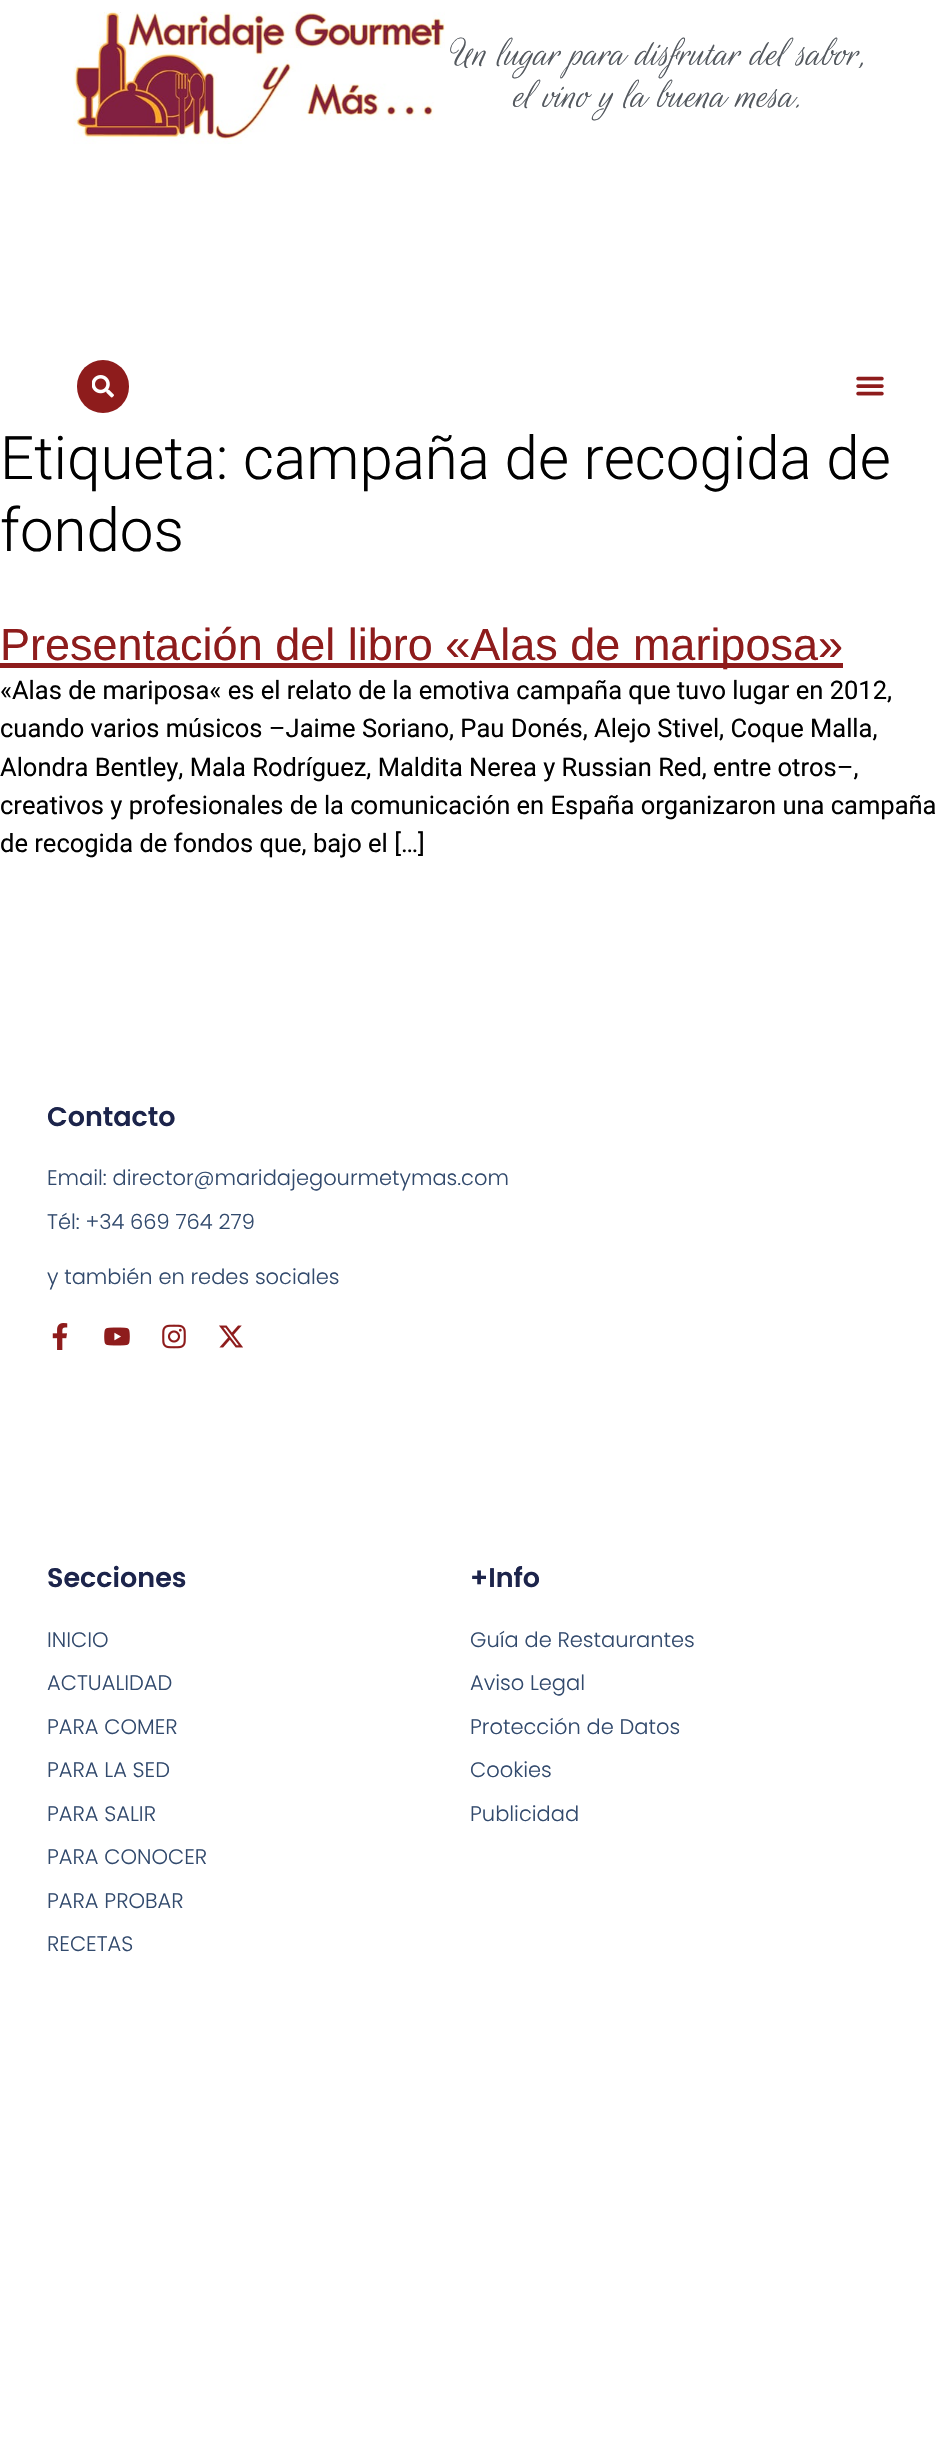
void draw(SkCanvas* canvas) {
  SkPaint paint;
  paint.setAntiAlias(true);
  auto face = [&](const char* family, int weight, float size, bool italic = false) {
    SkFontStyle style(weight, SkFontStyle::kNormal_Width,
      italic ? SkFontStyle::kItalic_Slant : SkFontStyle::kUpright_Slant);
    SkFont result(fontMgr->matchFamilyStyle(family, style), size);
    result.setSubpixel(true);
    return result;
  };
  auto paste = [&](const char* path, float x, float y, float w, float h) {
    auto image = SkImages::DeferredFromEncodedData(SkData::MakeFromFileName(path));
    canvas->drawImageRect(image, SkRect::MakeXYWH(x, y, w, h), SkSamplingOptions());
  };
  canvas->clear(0xffffffff);
  paste("img/1.png", 73, 11, 372, 133);
  paint.setColor(0xff8e1c1c);
  canvas->drawRoundRect(SkRect::MakeXYWH(77, 360, 52, 53), 26, 26, paint);
  paste("img/2.png", 92, 375, 22, 23);
  paste("img/3.png", 856, 376, 28, 20);
  canvas->drawRect(SkRect::MakeXYWH(0, 663, 843, 5), paint);
  paste("img/4.png", 52, 1323, 16, 27);
  paste("img/5.png", 104, 1327, 26, 19);
  paste("img/6.png", 162, 1324, 24, 25);
  paste("img/7.png", 219, 1325, 24, 23);
  auto f0 = face("Rouge Script", 400, 42, true);
  paint.setColor(0xff54595f);
  canvas->drawString("Un lugar para disfrutar del sabor,", 449, 65, f0, paint);
  canvas->drawString("el vino y la buena mesa.", 513, 107, f0, paint);
  auto f1 = face("Roboto", 300, 60);
  paint.setColor(0xff000000);
  canvas->drawString("Etiqueta: campaña de recogida de", 0, 479, f1, paint);
  canvas->drawString("fondos", 0, 551, f1, paint);
  auto f2 = face("Liberation Sans", 400, 45);
  paint.setColor(0xff8e1c1c);
  canvas->drawString("Presentación del libro «Alas de mariposa»", 0, 660, f2, paint);
  auto f3 = face("Roboto", 400, 25.5f);
  paint.setColor(0xff000000);
  {
    const struct { const char* s; float x, y; } items[] = {
      {"«Alas de mariposa« es el relato de la emotiva campaña que tuvo lugar en 2012,", 0, 699},
      {"cuando varios músicos –Jaime Soriano, Pau Donés, Alejo Stivel, Coque Malla,", 0, 737},
      {"Alondra Bentley, Mala Rodríguez, Maldita Nerea y Russian Red, entre otros–,", 0, 776},
      {"creativos y profesionales de la comunicación en España organizaron una campaña", 0, 814},
      {"de recogida de fondos que, bajo el […]", 0, 852},
    };
    for (auto [s, x, y] : items) {
      canvas->drawString(s, x, y, f3, paint);
    }
  }
  auto f4 = face("Poppins", 600, 27);
  paint.setColor(0xff1c244b);
  canvas->drawString("Contacto", 47, 1126, f4, paint);
  auto f5 = face("Poppins", 300, 21);
  paint.setColor(0xff324a6d);
  {
    const struct { const char* s; float x, y; } items[] = {
      {"Email: director@maridajegourmetymas.com", 47, 1185},
      {"Tél: +34 669 764 279", 47, 1229},
      {"y también en redes sociales", 47, 1284},
    };
    for (auto [s, x, y] : items) {
      canvas->drawString(s, x, y, f5, paint);
    }
  }
  paint.setColor(0xff1c244b);
  canvas->drawString("Secciones", 47, 1587, f4, paint);
  paint.setColor(0xff324a6d);
  {
    const struct { const char* s; float x, y; } items[] = {
      {"INICIO", 47, 1647},
      {"ACTUALIDAD", 47, 1690},
      {"PARA COMER", 47, 1734},
      {"PARA LA SED", 47, 1777},
      {"PARA SALIR", 47, 1821},
      {"PARA CONOCER", 47, 1864},
      {"PARA PROBAR", 47, 1908},
      {"RECETAS", 47, 1951},
    };
    for (auto [s, x, y] : items) {
      canvas->drawString(s, x, y, f5, paint);
    }
  }
  paint.setColor(0xff1c244b);
  canvas->drawString("+Info", 470, 1587, f4, paint);
  paint.setColor(0xff324a6d);
  {
    const struct { const char* s; float x, y; } items[] = {
      {"Guía de Restaurantes", 470, 1647},
      {"Aviso Legal", 470, 1690},
      {"Protección de Datos", 470, 1734},
      {"Cookies", 470, 1777},
      {"Publicidad", 470, 1821},
    };
    for (auto [s, x, y] : items) {
      canvas->drawString(s, x, y, f5, paint);
    }
  }
}
